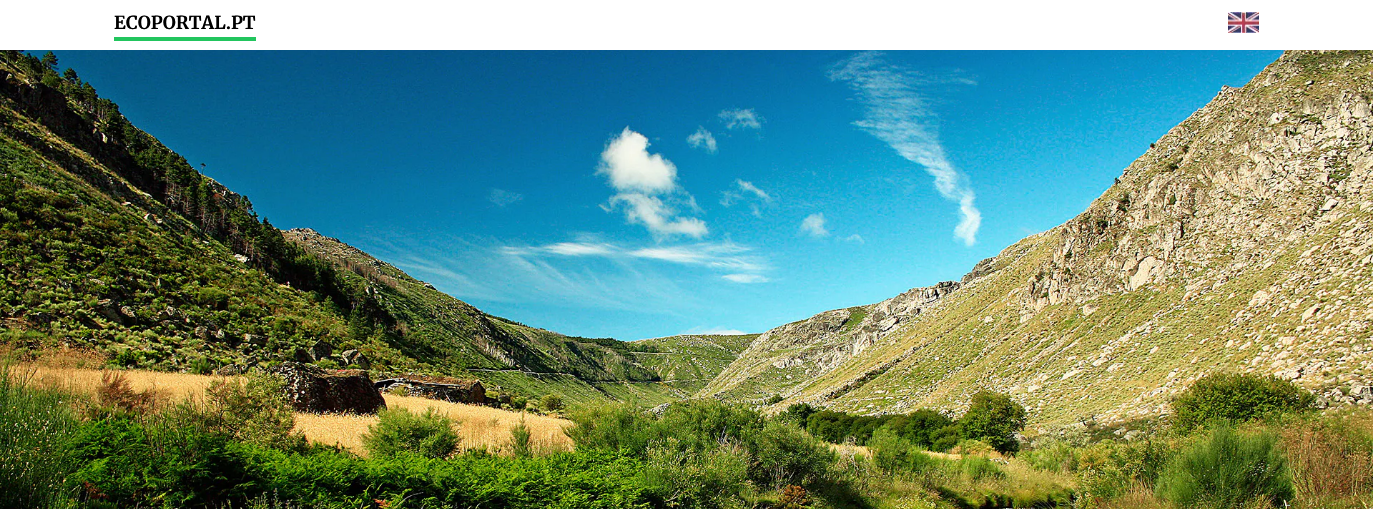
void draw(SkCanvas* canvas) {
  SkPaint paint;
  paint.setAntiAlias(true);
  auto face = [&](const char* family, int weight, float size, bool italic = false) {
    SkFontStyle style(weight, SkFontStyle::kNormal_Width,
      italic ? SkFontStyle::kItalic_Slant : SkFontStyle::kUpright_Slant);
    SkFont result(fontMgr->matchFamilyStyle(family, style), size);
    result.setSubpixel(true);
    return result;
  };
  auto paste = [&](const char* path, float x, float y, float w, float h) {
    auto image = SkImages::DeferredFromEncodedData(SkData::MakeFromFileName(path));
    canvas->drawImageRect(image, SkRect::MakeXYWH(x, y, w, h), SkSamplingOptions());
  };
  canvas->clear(0xffffffff);
  paint.setColor(0xff22c55e);
  canvas->drawRect(SkRect::MakeXYWH(114, 37, 142, 4), paint);
  paste("img/1.png", 1228, 12, 31, 21);
  paste("img/2.png", 0, 50, 1373, 459);
  auto f0 = face("Merriweather", 700, 18);
  paint.setColor(0xff000000);
  canvas->drawString("ECOPORTAL.PT", 114, 29, f0, paint);
}
